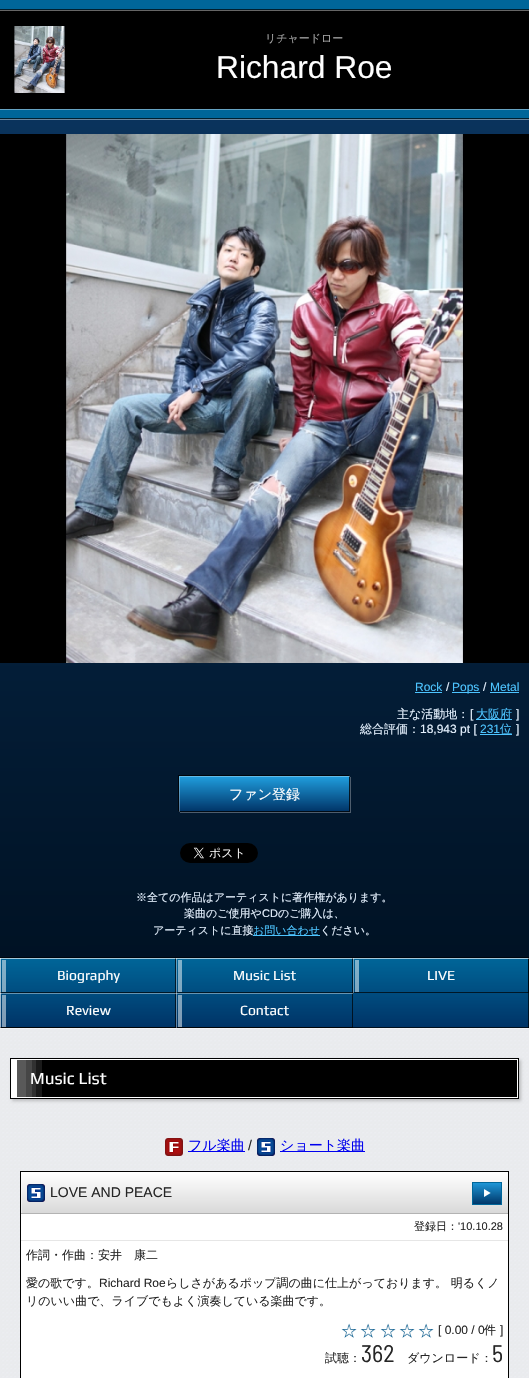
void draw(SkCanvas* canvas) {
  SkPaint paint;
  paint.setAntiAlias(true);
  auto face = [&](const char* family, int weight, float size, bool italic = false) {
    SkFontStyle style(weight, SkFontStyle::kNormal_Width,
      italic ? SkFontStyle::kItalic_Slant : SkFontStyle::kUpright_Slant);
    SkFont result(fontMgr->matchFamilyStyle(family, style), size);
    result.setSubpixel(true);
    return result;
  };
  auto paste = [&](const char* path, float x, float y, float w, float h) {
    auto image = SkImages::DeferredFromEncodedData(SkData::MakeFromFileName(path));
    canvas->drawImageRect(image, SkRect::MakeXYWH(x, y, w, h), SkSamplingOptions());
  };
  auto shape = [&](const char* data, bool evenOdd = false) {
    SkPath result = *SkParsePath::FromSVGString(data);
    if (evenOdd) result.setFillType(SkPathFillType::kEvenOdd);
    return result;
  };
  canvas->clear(0xffffffff);
  paste("img/1.png", 0, 1028, 529, 350);
  {
    const struct { float x, y, w, h; SkColor color; } items[] = {
      {0, 0, 529, 118, 0xff006699},
      {0, 118, 529, 1, 0xff001f2e},
      {0, 9, 529, 1, 0xff001f2e},
      {0, 109, 529, 1, 0xff66a3c2},
      {0, 11, 529, 98, 0xff000000},
      {0, 10, 529, 1, 0xff666666},
    };
    for (auto [x, y, w, h, color] : items) {
      paint.setColor(color);
      canvas->drawRect(SkRect::MakeXYWH(x, y, w, h), paint);
    }
  }
  paste("img/2.png", 14, 26, 51, 67);
  {
    const SkColor colors[] = {0xff0a335c, 0xff001224};
    const float stops[] = {0, 1};
    const SkPoint ends[] = {{264, 119}, {265, 958}};
    paint.setShader(SkGradientShader::MakeLinear(ends, colors, stops, 2, SkTileMode::kClamp));
    paint.setAlpha(255);
  }
  canvas->drawRect(SkRect::MakeXYWH(0, 120, 529, 837), paint);
  paint.setShader(nullptr);
  paint.setColor(0xff00050b);
  canvas->drawRect(SkRect::MakeXYWH(0, 957, 529, 1), paint);
  paint.setColor(0xff6c859d);
  canvas->drawRect(SkRect::MakeXYWH(0, 119, 529, 1), paint);
  paste("img/3.png", 0, 134, 529, 529);
  {
    const struct { float x, y, w, h; SkColor color; } items[] = {
      {415, 692, 27, 1, 0xff4dc4ff},
      {452, 692, 28, 1, 0xff4dc4ff},
      {490, 692, 29, 1, 0xff4dc4ff},
      {476, 719, 36, 1, 0xff4dc4ff},
      {480, 734, 32, 1, 0xff4dc4ff},
    };
    for (auto [x, y, w, h, color] : items) {
      paint.setColor(color);
      canvas->drawRect(SkRect::MakeXYWH(x, y, w, h), paint);
    }
  }
  paint.setColor(0xff00050a);
  canvas->drawPath(shape("M178 775V811H179V776H349V775Z"), paint);
  paint.setColor(0xff4e5d6d);
  canvas->drawPath(shape("M180 812V813H351V777H350V812Z"), paint);
  {
    const SkColor colors[] = {0xff209fdf, 0xff003366};
    const float stops[] = {0, 1};
    const SkPoint ends[] = {{265, 776}, {265, 812}};
    paint.setShader(SkGradientShader::MakeLinear(ends, colors, stops, 2, SkTileMode::kClamp));
    paint.setAlpha(255);
  }
  canvas->drawRect(SkRect::MakeXYWH(179, 776, 171, 36), paint);
  canvas->save();
  canvas->clipRect(SkRect::MakeXYWH(179, 776, 171, 36));
  paint.setShader(nullptr);
  paint.setColor(0xcc000000);
  canvas->drawPath(shape("M80 677H449V911H80ZM178 775H349V811H178Z", true), paint);
  paint.setColor(0x4dffffff);
  canvas->drawPath(shape("M80 677H449V911H80ZM180 777H351V813H180Z", true), paint);
  canvas->restore();
  paste("img/4.png", 180, 843, 78, 20);
  paint.setColor(0xff4dc4ff);
  canvas->drawRect(SkRect::MakeXYWH(253, 935, 67, 1), paint);
  paint.setColor(0xe6ffffff);
  canvas->drawRect(SkRect::MakeXYWH(0, 1028, 529, 350), paint);
  {
    const SkColor colors[] = {0xff006699, 0xff003366};
    const float stops[] = {0, 1};
    const SkPoint ends[] = {{265, 958}, {265, 1028}};
    paint.setShader(SkGradientShader::MakeLinear(ends, colors, stops, 2, SkTileMode::kClamp));
    paint.setAlpha(255);
  }
  canvas->drawRect(SkRect::MakeXYWH(0, 958, 529, 70), paint);
  paint.setShader(nullptr);
  {
    const struct { float x, y, w, h; SkColor color; } items[] = {
      {528, 958, 1, 70, 0xb3000000},
      {0, 1027, 529, 1, 0xb3000000},
      {0, 958, 1, 70, 0x66ffffff},
      {0, 958, 529, 1, 0x66ffffff},
      {2, 960, 4, 32, 0x80ffffff},
      {175, 958, 1, 35, 0xb3000000},
      {0, 992, 176, 1, 0xb3000000},
      {0, 958, 1, 35, 0x66ffffff},
      {0, 958, 176, 1, 0x66ffffff},
      {178, 960, 4, 32, 0x80ffffff},
      {352, 958, 1, 35, 0xb3000000},
      {176, 992, 177, 1, 0xb3000000},
      {176, 958, 1, 35, 0x66ffffff},
      {176, 958, 177, 1, 0x66ffffff},
      {355, 960, 4, 32, 0x80ffffff},
      {528, 958, 1, 35, 0xb3000000},
      {353, 992, 176, 1, 0xb3000000},
      {353, 958, 1, 35, 0x66ffffff},
      {353, 958, 176, 1, 0x66ffffff},
      {2, 995, 4, 32, 0x80ffffff},
      {175, 993, 1, 35, 0xb3000000},
      {0, 1027, 176, 1, 0xb3000000},
      {0, 993, 1, 35, 0x66ffffff},
      {0, 993, 176, 1, 0x66ffffff},
      {178, 995, 4, 32, 0x80ffffff},
      {352, 993, 1, 35, 0xb3000000},
      {176, 1027, 177, 1, 0xb3000000},
      {176, 993, 1, 35, 0x66ffffff},
      {176, 993, 177, 1, 0x66ffffff},
      {0, 1028, 529, 1, 0x66ffffff},
    };
    for (auto [x, y, w, h, color] : items) {
      paint.setColor(color);
      canvas->drawRect(SkRect::MakeXYWH(x, y, w, h), paint);
    }
  }
  paint.setColor(0x33000000);
  paint.setMaskFilter(SkMaskFilter::MakeBlur(kNormal_SkBlurStyle, 1.5f));
  canvas->drawRect(SkRect::MakeXYWH(12, 1060, 509, 41), paint);
  paint.setMaskFilter(nullptr);
  {
    const struct { float x, y, w, h; SkColor color; } items[] = {
      {42, 1060, 475, 37, 0xff000000},
      {36, 1060, 6, 37, 0xff1a1a1a},
      {32, 1060, 4, 37, 0xff313131},
      {26, 1060, 6, 37, 0xff464646},
      {17, 1060, 9, 37, 0xff595959},
      {12, 1058, 5, 41, 0xffffffff},
    };
    for (auto [x, y, w, h, color] : items) {
      paint.setColor(color);
      canvas->drawRect(SkRect::MakeXYWH(x, y, w, h), paint);
    }
  }
  paint.setStroke(true);
  paint.setStrokeWidth(2);
  canvas->drawRect(SkRect::MakeXYWH(11, 1059, 507, 39), paint);
  paint.setStrokeWidth(1);
  paint.setColor(0xff000000);
  canvas->drawRect(SkRect::MakeXYWH(10.5f, 1058.5f, 508, 40), paint);
  paste("img/5.png", 165, 1138, 18, 18);
  paint.setStroke(false);
  paint.setColor(0xff0000ee);
  canvas->drawRect(SkRect::MakeXYWH(188, 1151, 57, 1), paint);
  paste("img/6.png", 257, 1138, 18, 18);
  canvas->drawRect(SkRect::MakeXYWH(280, 1151, 85, 1), paint);
  paint.setColor(0xffffffff);
  canvas->drawRect(SkRect::MakeXYWH(21, 1214, 487, 164), paint);
  paint.setStroke(true);
  paint.setColor(0xff000000);
  canvas->drawRect(SkRect::MakeXYWH(20.5f, 1171.5f, 488, 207), paint);
  paint.setStroke(false);
  paint.setColor(0xffb3b3b3);
  canvas->drawRect(SkRect::MakeXYWH(21, 1213, 487, 1), paint);
  {
    const SkColor colors[] = {0xffffffff, 0xffd9d9d9};
    const float stops[] = {0, 1};
    const SkPoint ends[] = {{265, 1172}, {265, 1213}};
    paint.setShader(SkGradientShader::MakeLinear(ends, colors, stops, 2, SkTileMode::kClamp));
    paint.setAlpha(255);
  }
  canvas->drawRect(SkRect::MakeXYWH(21, 1172, 487, 41), paint);
  paint.setShader(nullptr);
  paint.setColor(0x66ffffff);
  canvas->drawRect(SkRect::MakeXYWH(21, 1172, 1, 41), paint);
  paste("img/7.png", 27, 1184, 18, 18);
  {
    const SkColor colors[] = {0xff1e96d7, 0xff003769};
    const float stops[] = {0, 1};
    const SkPoint ends[] = {{473, 1183}, {473, 1204}};
    paint.setShader(SkGradientShader::MakeLinear(ends, colors, stops, 2, SkTileMode::kClamp));
    paint.setAlpha(255);
  }
  canvas->drawRect(SkRect::MakeXYWH(473, 1183, 28, 21), paint);
  paint.setStroke(true);
  paint.setShader(nullptr);
  paint.setColor(0xff006699);
  canvas->drawRect(SkRect::MakeXYWH(472.5f, 1182.5f, 29, 22), paint);
  paste("img/8.png", 484, 1189, 7, 8);
  paint.setStroke(false);
  paint.setColor(0xffe6e6e6);
  canvas->drawRect(SkRect::MakeXYWH(21, 1240, 487, 1), paint);
  paste("img/9.png", 341, 1323, 16, 15);
  paste("img/9.png", 360, 1323, 16, 15);
  paste("img/9.png", 380, 1323, 16, 15);
  paste("img/9.png", 399, 1323, 16, 15);
  paste("img/9.png", 418, 1323, 16, 15);
  auto f0 = face("WenQuanYi Zen Hei", 500, 11);
  paint.setColor(0xffa8a8a8);
  canvas->drawString("リチャードロー", 265, 42, f0, paint);
  auto f1 = face("Liberation Sans", 400, 31.75f);
  paint.setColor(0xffffffff);
  canvas->drawString("Richard Roe", 216, 78, f1, paint);
  auto f2 = face("Liberation Sans", 400, 12);
  paint.setColor(0xff4dc4ff);
  canvas->drawString("Rock", 415, 691, f2, paint);
  paint.setColor(0xffe6f2ff);
  canvas->drawString("/", 446, 691, f2, paint);
  paint.setColor(0xff4dc4ff);
  canvas->drawString("Pops", 452, 691, f2, paint);
  paint.setColor(0xffe6f2ff);
  canvas->drawString("/", 483, 691, f2, paint);
  paint.setColor(0xff4dc4ff);
  canvas->drawString("Metal", 490, 691, f2, paint);
  auto f3 = face("WenQuanYi Zen Hei", 500, 12);
  paint.setColor(0xffe6f2ff);
  canvas->drawString("主な活動地：", 397, 718, f3, paint);
  canvas->drawString("[", 470, 718, f2, paint);
  paint.setColor(0xff4dc4ff);
  canvas->drawString("大阪府", 476, 718, f3, paint);
  paint.setColor(0xffe6f2ff);
  canvas->drawString("]", 516, 718, f2, paint);
  canvas->drawString("総合評価：", 360, 733, f3, paint);
  canvas->drawString("18,943 pt [", 420, 733, f2, paint);
  paint.setColor(0xff4dc4ff);
  canvas->drawString("231", 480, 733, f2, paint);
  canvas->drawString("位", 500, 733, f3, paint);
  paint.setColor(0xffe6f2ff);
  canvas->drawString("]", 516, 733, f2, paint);
  auto f4 = face("WenQuanYi Zen Hei", 500, 14);
  paint.setColor(0xffffffff);
  canvas->drawString("ファン登録", 229, 799, f4, paint);
  paint.setColor(0xffe6f2ff);
  canvas->drawString("※全ての作品はアーティストに著作権があります。", 136, 901, f0, paint);
  canvas->drawString("楽曲のご使用や", 184, 917, f0, paint);
  auto f5 = face("Liberation Sans", 400, 11);
  canvas->drawString("CD", 262, 917, f5, paint);
  canvas->drawString("のご購入は、", 278, 917, f0, paint);
  canvas->drawString("アーティストに直接", 153, 934, f0, paint);
  paint.setColor(0xff4dc4ff);
  canvas->drawString("お問い合わせ", 253, 934, f0, paint);
  paint.setColor(0xffe6f2ff);
  canvas->drawString("ください。", 320, 934, f0, paint);
  auto f6 = face("Play", 400, 14);
  paint.setColor(0xffffffff);
  {
    const struct { const char* s; float x, y; } items[] = {
      {"Biography", 57, 980},
      {"Music List", 233, 980},
      {"LIVE", 427, 980},
      {"Review", 66, 1015},
      {"Contact", 240, 1015},
    };
    for (auto [s, x, y] : items) {
      canvas->drawString(s, x, y, f6, paint);
    }
  }
  auto f7 = face("Play", 400, 17);
  canvas->drawString("Music List", 30, 1084, f7, paint);
  paint.setColor(0xff0000ee);
  canvas->drawString("フル楽曲", 188, 1150, f4, paint);
  auto f8 = face("Liberation Sans", 400, 14);
  paint.setColor(0xff262626);
  canvas->drawString("/", 248, 1150, f8, paint);
  paint.setColor(0xff0000ee);
  canvas->drawString("ショート楽曲", 280, 1150, f4, paint);
  paint.setColor(0xff262626);
  canvas->drawString("LOVE AND PEACE", 50, 1197, f8, paint);
  canvas->drawString("登録日：", 414, 1230, f0, paint);
  canvas->drawString("'10.10.28", 458, 1230, f5, paint);
  canvas->drawString("作詞・作曲：安井　康二", 26, 1259, f3, paint);
  canvas->drawString("愛の歌です。", 26, 1287, f3, paint);
  canvas->drawString("Richard Roe", 99, 1287, f2, paint);
  canvas->drawString("らしさがあるポップ調の曲に仕上がっております。 明るくノ", 166, 1287, f3, paint);
  canvas->drawString("リのいい曲で、ライブでもよく演奏している楽曲です。", 26, 1305, f3, paint);
  canvas->drawString("[ 0.00 / 0", 438, 1334, f2, paint);
  canvas->drawString("件", 484, 1334, f3, paint);
  canvas->drawString("]", 500, 1334, f2, paint);
  canvas->drawString("試聴：", 325, 1362, f3, paint);
  auto f9 = face("Barlow Semi Condensed", 400, 24);
  canvas->drawString("362", 361, 1362, f9, paint);
  canvas->drawString("ダウンロード：", 407, 1362, f3, paint);
  canvas->drawString("5", 492, 1362, f9, paint);
}
